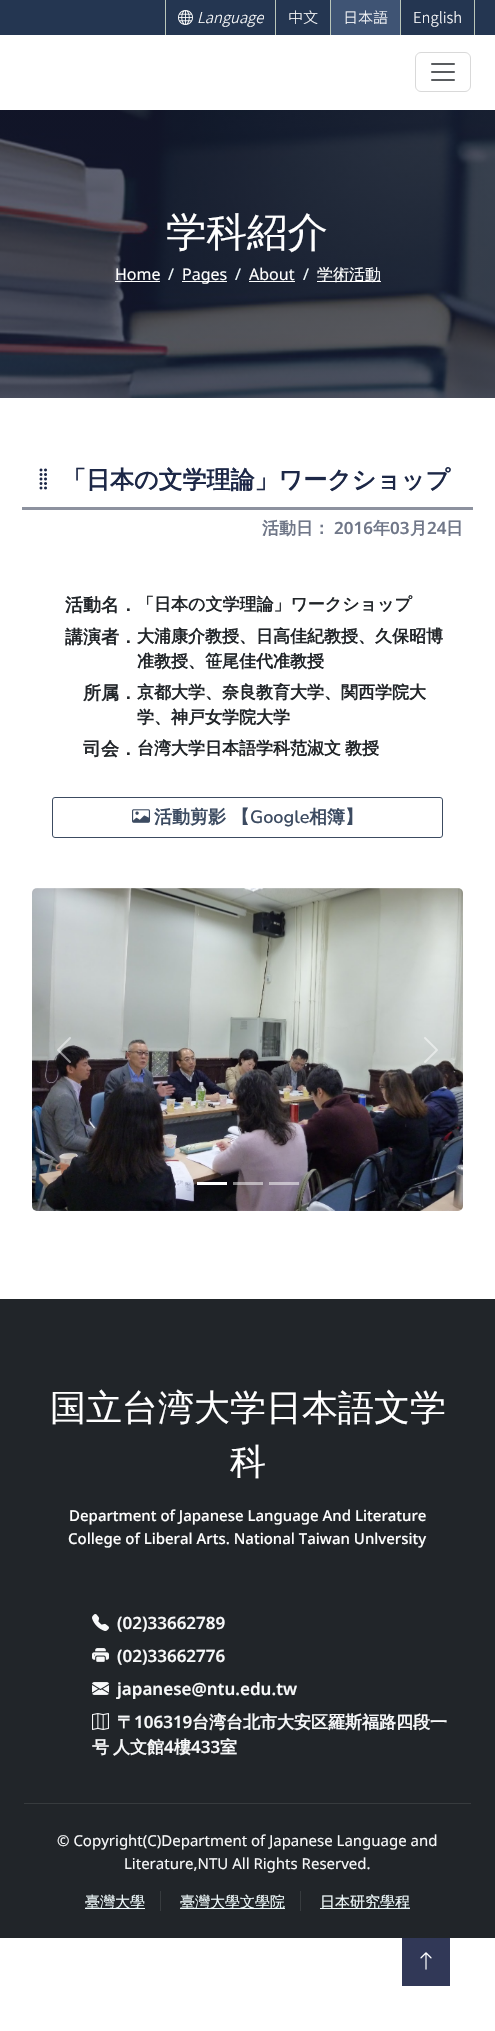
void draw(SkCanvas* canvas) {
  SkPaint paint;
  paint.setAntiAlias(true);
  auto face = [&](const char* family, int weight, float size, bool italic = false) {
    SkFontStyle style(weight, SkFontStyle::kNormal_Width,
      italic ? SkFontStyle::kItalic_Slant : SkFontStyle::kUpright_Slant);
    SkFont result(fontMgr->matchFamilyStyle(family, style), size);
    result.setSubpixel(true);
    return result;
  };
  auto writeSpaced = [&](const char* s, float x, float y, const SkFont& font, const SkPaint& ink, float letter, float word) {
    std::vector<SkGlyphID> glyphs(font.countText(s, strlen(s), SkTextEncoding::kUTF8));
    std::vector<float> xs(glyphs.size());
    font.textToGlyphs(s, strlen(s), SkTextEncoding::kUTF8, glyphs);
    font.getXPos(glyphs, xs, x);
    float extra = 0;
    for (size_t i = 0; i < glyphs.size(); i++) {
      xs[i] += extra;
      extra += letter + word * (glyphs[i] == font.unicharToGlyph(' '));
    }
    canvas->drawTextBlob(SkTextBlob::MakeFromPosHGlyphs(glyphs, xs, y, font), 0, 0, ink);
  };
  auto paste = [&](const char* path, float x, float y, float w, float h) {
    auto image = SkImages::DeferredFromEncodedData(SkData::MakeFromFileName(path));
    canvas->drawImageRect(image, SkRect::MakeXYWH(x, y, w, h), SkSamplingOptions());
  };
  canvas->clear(0xffffffff);
  paint.setColor(0xff243651);
  canvas->drawRect(SkRect::MakeXYWH(0, 0, 495, 35), paint);
  paint.setColor(0xffbac6b9);
  canvas->drawRect(SkRect::MakeXYWH(165, 0, 1, 35), paint);
  paste("img/1.png", 178, 10, 15, 15);
  {
    const struct { float x, y, w, h; SkColor color; } items[] = {
      {275, 0, 1, 35, 0xffbac6b9},
      {331, 0, 69, 35, 0xff3f5474},
      {400, 0, 1, 35, 0xffbac6b9},
      {330, 0, 1, 35, 0xffbac6b9},
      {474, 0, 1, 35, 0xffbac6b9},
    };
    for (auto [x, y, w, h, color] : items) {
      paint.setColor(color);
      canvas->drawRect(SkRect::MakeXYWH(x, y, w, h), paint);
    }
  }
  paint.setStroke(true);
  paint.setStrokeWidth(1);
  paint.setColor(0xffd9d9d9);
  canvas->drawRoundRect(SkRect::MakeXYWH(415.5f, 52.5f, 55, 39), 5.5f, 5.5f, paint);
  paste("img/2.png", 431, 63, 24, 18);
  paste("img/3.png", 0, 110, 495, 288);
  paint.setStroke(false);
  {
    const struct { float x, y, w, h; SkColor color; } items[] = {
      {115, 281, 45, 1, 0xffffffff},
      {182, 281, 45, 1, 0xffffffff},
      {249, 281, 46, 1, 0xffffffff},
      {317, 281, 64, 1, 0xffffffff},
    };
    for (auto [x, y, w, h, color] : items) {
      paint.setColor(color);
      canvas->drawRect(SkRect::MakeXYWH(x, y, w, h), paint);
    }
  }
  paste("img/4.png", 39, 468, 8, 22);
  paint.setColor(0xff8d929f);
  canvas->drawRect(SkRect::MakeXYWH(22, 507, 451, 3), paint);
  paint.setStroke(true);
  paint.setColor(0xff3c4b61);
  canvas->drawRoundRect(SkRect::MakeXYWH(52.5f, 797.5f, 390, 40), 2.5f, 2.5f, paint);
  paste("img/5.png", 132, 809, 18, 14);
  paste("img/6.png", 32, 888, 431, 323);
  paste("img/7.png", 57, 1037, 14, 26);
  paste("img/8.png", 424, 1037, 14, 26);
  paint.setStroke(false);
  {
    const struct { float x, y, w, h; SkColor color; } items[] = {
      {197, 1182, 30, 3, 0xffffffff},
      {233, 1182, 30, 3, 0x80ffffff},
      {269, 1182, 30, 3, 0x80ffffff},
      {0, 1299, 495, 639, 0xff212529},
    };
    for (auto [x, y, w, h, color] : items) {
      paint.setColor(color);
      canvas->drawRect(SkRect::MakeXYWH(x, y, w, h), paint);
    }
  }
  paste("img/9.png", 92, 1614, 17, 17);
  paste("img/10.png", 92, 1648, 17, 14);
  paste("img/11.png", 92, 1682, 17, 13);
  paste("img/12.png", 92, 1713, 17, 17);
  {
    const struct { float x, y, w, h; SkColor color; } items[] = {
      {24, 1803, 447, 1, 0xff373b3e},
      {160, 1891, 1, 20, 0xff373b3e},
      {85, 1908, 60, 1, 0xfff0fbfc},
      {300, 1891, 1, 20, 0xff373b3e},
      {180, 1908, 105, 1, 0xfff0fbfc},
      {320, 1908, 90, 1, 0xfff0fbfc},
      {402, 1938, 48, 48, 0xff313857},
    };
    for (auto [x, y, w, h, color] : items) {
      paint.setColor(color);
      canvas->drawRect(SkRect::MakeXYWH(x, y, w, h), paint);
    }
  }
  paste("img/13.png", 420, 1952, 12, 18);
  auto f0 = face("Noto Sans TC", 300, 15, true);
  paint.setColor(0xffffffff);
  canvas->drawString("Language", 197, 23, f0, paint);
  auto f1 = face("Noto Sans TC", 300, 15);
  {
    const struct { const char* s; float x, y; } items[] = {
      {"中文", 288, 23},
      {"日本語", 343, 23},
      {"English", 413, 23},
    };
    for (auto [s, x, y] : items) {
      canvas->drawString(s, x, y, f1, paint);
    }
  }
  auto f2 = face("WenQuanYi Zen Hei", 500, 40.5f);
  canvas->drawString("学科紹介", 166, 246, f2, paint);
  auto f3 = face("Noto Sans", 400, 16);
  canvas->drawString("Home", 115, 280, f3, paint);
  paint.setColor(0xfff0fbfc);
  canvas->drawString("/", 168, 280, f3, paint);
  paint.setColor(0xffffffff);
  canvas->drawString("Pages", 182, 280, f3, paint);
  paint.setColor(0xfff0fbfc);
  canvas->drawString("/", 235, 280, f3, paint);
  paint.setColor(0xffffffff);
  canvas->drawString("About", 249, 280, f3, paint);
  paint.setColor(0xfff0fbfc);
  canvas->drawString("/", 303, 280, f3, paint);
  auto f4 = face("WenQuanYi Zen Hei", 500, 16);
  paint.setColor(0xffffffff);
  canvas->drawString("学術活動", 317, 280, f4, paint);
  auto f5 = face("WenQuanYi Zen Hei", 700, 24);
  paint.setColor(0xff1d2847);
  canvas->drawString("「日本の文学理論」ワークショップ", 62, 488, f5, paint);
  auto f6 = face("WenQuanYi Zen Hei", 700, 17);
  paint.setColor(0xff707788);
  canvas->drawString("活動日：", 262, 534, f6, paint);
  auto f7 = face("Noto Sans", 600, 17);
  canvas->drawString("2016", 334, 534, f7, paint);
  canvas->drawString("年", 373, 534, f6, paint);
  canvas->drawString("03", 390, 534, f7, paint);
  canvas->drawString("月", 410, 534, f6, paint);
  canvas->drawString("24", 427, 534, f7, paint);
  canvas->drawString("日", 446, 534, f6, paint);
  auto f8 = face("WenQuanYi Zen Hei", 700, 18);
  paint.setColor(0xff212529);
  canvas->drawString("活動名．", 65, 611, f8, paint);
  canvas->drawString("「日本の文学理論」ワークショップ", 137, 610, f6, paint);
  canvas->drawString("講演者．", 65, 643, f8, paint);
  canvas->drawString("大浦康介教授、日高佳紀教授、久保昭博", 137, 642, f6, paint);
  canvas->drawString("准教授、笹尾佳代准教授", 137, 667, f6, paint);
  canvas->drawString("所属．", 83, 699, f8, paint);
  canvas->drawString("京都大学、奈良教育大学、関西学院大", 137, 698, f6, paint);
  canvas->drawString("学、神戸女学院大学", 137, 723, f6, paint);
  canvas->drawString("司会．", 83, 755, f8, paint);
  writeSpaced("台湾大学日本語学科范淑文 教授", 137, 754, f6, paint, 0, -1);
  paint.setColor(0xff3c4b61);
  canvas->drawString("活動剪影 【", 154, 823, f8, paint);
  auto f9 = face("Nunito", 600, 18);
  canvas->drawString("Google", 250, 823, f9, paint);
  canvas->drawString("相簿】", 309, 823, f8, paint);
  auto f10 = face("WenQuanYi Zen Hei", 500, 36);
  paint.setColor(0xffffffff);
  canvas->drawString("国立台湾大学日本語文学", 50, 1420, f10, paint);
  canvas->drawString("科", 230, 1474, f10, paint);
  auto f11 = face("Noto Sans", 500, 15);
  canvas->drawString("Department of Japanese Language And Literature", 69, 1521, f11, paint);
  canvas->drawString("College of Liberal Arts. National Taiwan Unlversity", 68, 1544, f11, paint);
  paint.setColor(0xfff8f9fa);
  {
    const struct { const char* s; float x, y; } items[] = {
      {"(02)33662789", 117, 1629},
      {"(02)33662776", 117, 1662},
      {"japanese@ntu.edu.tw", 117, 1695},
    };
    for (auto [s, x, y] : items) {
      canvas->drawString(s, x, y, f7, paint);
    }
  }
  canvas->drawString("〒", 117, 1728, f6, paint);
  canvas->drawString("106319", 134, 1728, f7, paint);
  canvas->drawString("台湾台北市大安区羅斯福路四段一", 192, 1728, f6, paint);
  writeSpaced("号 人文館", 92, 1753, f6, paint, 0, -1);
  canvas->drawString("4", 164, 1753, f7, paint);
  canvas->drawString("樓", 174, 1753, f6, paint);
  canvas->drawString("433", 191, 1753, f7, paint);
  canvas->drawString("室", 220, 1753, f6, paint);
  auto f12 = face("Noto Sans", 400, 15);
  canvas->drawString("© Copyright(C)Department of Japanese Language and", 57, 1846, f12, paint);
  canvas->drawString("Literature,NTU All Rights Reserved.", 124, 1869, f12, paint);
  auto f13 = face("WenQuanYi Zen Hei", 500, 15);
  paint.setColor(0xfff0fbfc);
  {
    const struct { const char* s; float x, y; } items[] = {
      {"臺灣大學", 85, 1907},
      {"臺灣大學文學院", 180, 1907},
      {"日本研究學程", 320, 1907},
    };
    for (auto [s, x, y] : items) {
      canvas->drawString(s, x, y, f13, paint);
    }
  }
}
